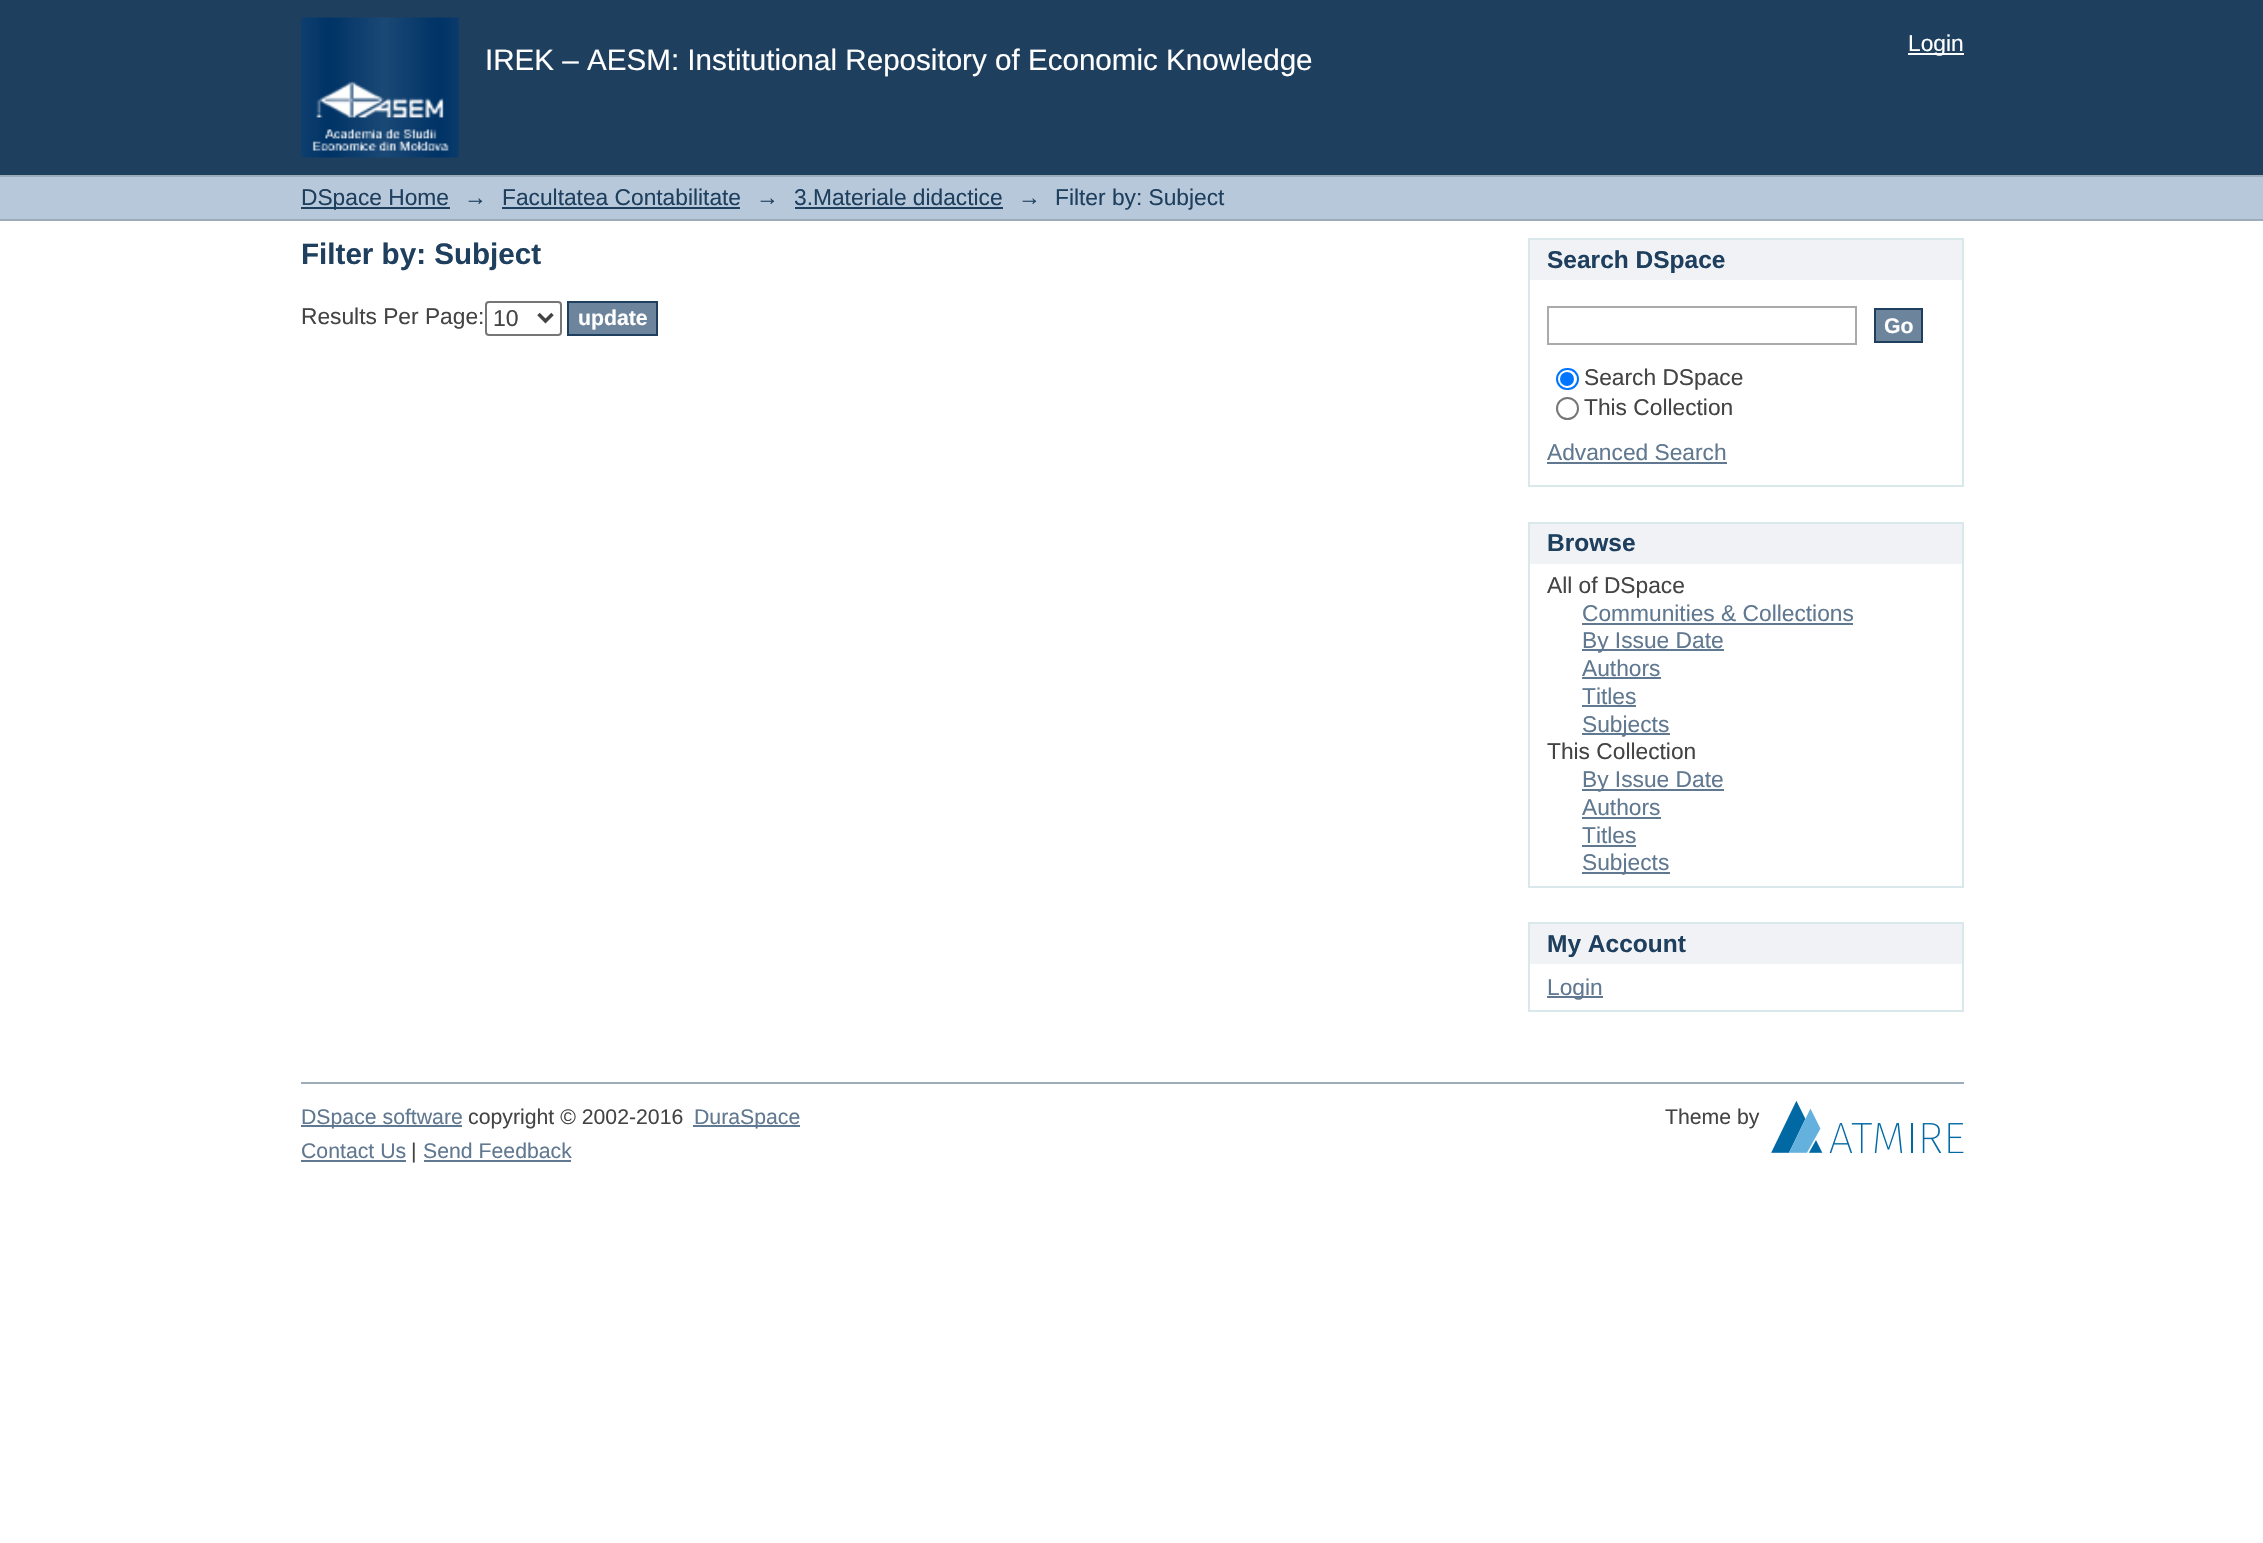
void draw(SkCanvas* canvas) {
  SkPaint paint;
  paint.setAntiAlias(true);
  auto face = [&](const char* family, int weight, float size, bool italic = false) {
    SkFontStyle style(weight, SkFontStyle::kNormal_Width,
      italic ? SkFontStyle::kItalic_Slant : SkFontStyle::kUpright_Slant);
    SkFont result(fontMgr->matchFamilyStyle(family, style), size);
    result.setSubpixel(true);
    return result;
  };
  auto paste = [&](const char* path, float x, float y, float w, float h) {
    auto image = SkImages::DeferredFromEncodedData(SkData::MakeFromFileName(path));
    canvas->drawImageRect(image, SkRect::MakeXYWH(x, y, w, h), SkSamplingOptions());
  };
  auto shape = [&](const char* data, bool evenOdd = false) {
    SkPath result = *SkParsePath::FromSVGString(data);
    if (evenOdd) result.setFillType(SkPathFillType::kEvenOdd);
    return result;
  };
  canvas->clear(0xffffffff);
  paint.setColor(0xff1f3f5e);
  canvas->drawRect(SkRect::MakeXYWH(0, 0, 2263, 175), paint);
  paint.setColor(0xffffffff);
  canvas->drawRect(SkRect::MakeXYWH(1908, 53, 56, 2), paint);
  paste("img/1.png", 301, 17, 158, 141);
  {
    const struct { float x, y, w, h; SkColor color; } items[] = {
      {0, 177, 2263, 42, 0xffb6c8d9},
      {0, 175, 2263, 2, 0xff9cacba},
      {0, 219, 2263, 2, 0xff9cacba},
      {301, 207, 149, 2, 0xff1f3f5e},
      {502, 207, 238, 2, 0xff1f3f5e},
      {795, 207, 208, 2, 0xff1f3f5e},
    };
    for (auto [x, y, w, h, color] : items) {
      paint.setColor(color);
      canvas->drawRect(SkRect::MakeXYWH(x, y, w, h), paint);
    }
  }
  paint.setStroke(true);
  paint.setStrokeWidth(2);
  paint.setColor(0xff767676);
  canvas->drawRoundRect(SkRect::MakeXYWH(486, 302, 75, 33), 3, 3, paint);
  paint.setStrokeWidth(3.5f);
  paint.setColor(0xff444444);
  canvas->drawPath(shape("M538.5 314L545.5 321L552.5 314"), paint);
  paint.setStroke(false);
  paint.setColor(0xff6d859c);
  canvas->drawRect(SkRect::MakeXYWH(568, 302, 89, 33), paint);
  paint.setStroke(true);
  paint.setStrokeWidth(2);
  paint.setColor(0xff1f3f5e);
  canvas->drawRect(SkRect::MakeXYWH(568, 302, 89, 33), paint);
  paint.setStroke(false);
  {
    const struct { float x, y, w, h; SkColor color; } items[] = {
      {1530, 240, 432, 40, 0xfff0f2f5},
      {1528, 238, 436, 2, 0xffd8e8eb},
      {1962, 238, 2, 249, 0xffd8e8eb},
      {1528, 238, 2, 42, 0xffd8e8eb},
      {1528, 485, 436, 2, 0xffd8e8eb},
      {1528, 280, 2, 207, 0xffd8e8eb},
    };
    for (auto [x, y, w, h, color] : items) {
      paint.setColor(color);
      canvas->drawRect(SkRect::MakeXYWH(x, y, w, h), paint);
    }
  }
  paint.setStroke(true);
  paint.setColor(0xffaaaaaa);
  canvas->drawRect(SkRect::MakeXYWH(1548, 307, 308, 37), paint);
  paint.setStroke(false);
  paint.setColor(0xff6d859c);
  canvas->drawRect(SkRect::MakeXYWH(1875, 309, 47, 33), paint);
  paint.setStroke(true);
  paint.setColor(0xff1f3f5e);
  canvas->drawRect(SkRect::MakeXYWH(1875, 309, 47, 33), paint);
  paint.setColor(0xff0075ff);
  canvas->drawRoundRect(SkRect::MakeXYWH(1557, 369, 21, 20), 10, 10, paint);
  paint.setStroke(false);
  canvas->drawCircle(1567, 379, 7, paint);
  paint.setStroke(true);
  paint.setColor(0xff767676);
  canvas->drawCircle(1567.5f, 408.5f, 10.5f, paint);
  paint.setStroke(false);
  {
    const struct { float x, y, w, h; SkColor color; } items[] = {
      {1547, 462, 180, 2, 0xff607890},
      {1530, 524, 432, 40, 0xfff0f2f5},
      {1528, 522, 436, 2, 0xffd8e8eb},
      {1962, 522, 2, 365, 0xffd8e8eb},
      {1528, 522, 2, 42, 0xffd8e8eb},
      {1528, 886, 436, 2, 0xffd8e8eb},
      {1528, 564, 2, 323, 0xffd8e8eb},
      {1582, 623, 271, 2, 0xff607890},
      {1582, 649, 142, 2, 0xff607890},
      {1582, 677, 79, 2, 0xff607890},
      {1582, 705, 54, 2, 0xff607890},
      {1582, 733, 88, 2, 0xff607890},
      {1582, 789, 142, 2, 0xff607890},
      {1582, 817, 79, 2, 0xff607890},
      {1582, 845, 54, 2, 0xff607890},
      {1582, 872, 88, 2, 0xff607890},
      {1530, 924, 432, 40, 0xfff0f2f5},
      {1528, 922, 436, 2, 0xffd8e8eb},
      {1962, 922, 2, 90, 0xffd8e8eb},
      {1528, 922, 2, 42, 0xffd8e8eb},
      {1528, 1010, 436, 2, 0xffd8e8eb},
      {1528, 964, 2, 48, 0xffd8e8eb},
      {1547, 996, 56, 2, 0xff607890},
      {301, 1082, 1663, 2, 0xff9cacba},
      {301, 1125, 161, 2, 0xff607890},
      {693, 1125, 107, 2, 0xff607890},
    };
    for (auto [x, y, w, h, color] : items) {
      paint.setColor(color);
      canvas->drawRect(SkRect::MakeXYWH(x, y, w, h), paint);
    }
  }
  paste("img/2.png", 1771, 1101, 193, 52);
  canvas->drawRect(SkRect::MakeXYWH(301, 1160, 105, 2), paint);
  canvas->drawRect(SkRect::MakeXYWH(424, 1160, 147, 2), paint);
  auto f0 = face("Liberation Sans", 400, 22.75f);
  paint.setColor(0xffffffff);
  canvas->drawString("Login", 1908, 51, f0, paint);
  auto f1 = face("Liberation Sans", 400, 29.6f);
  canvas->drawString("IREK – AESM: Institutional Repository of Economic Knowledge", 485, 70, f1, paint);
  paint.setColor(0xff1f3f5e);
  {
    const struct { const char* s; float x, y; } items[] = {
      {"DSpace Home", 301, 205},
      {"→", 464, 205},
      {"Facultatea Contabilitate", 502, 205},
      {"→", 756, 205},
      {"3.Materiale didactice", 794, 205},
      {"→", 1018, 205},
      {"Filter by: Subject", 1055, 205},
    };
    for (auto [s, x, y] : items) {
      canvas->drawString(s, x, y, f0, paint);
    }
  }
  auto f2 = face("Liberation Sans", 700, 29.6f);
  canvas->drawString("Filter by: Subject", 301, 264, f2, paint);
  paint.setColor(0xff444444);
  canvas->drawString("Results Per Page:", 301, 324, f0, paint);
  auto f3 = face("Liberation Sans", 400, 23);
  canvas->drawString("10", 493, 326, f3, paint);
  auto f4 = face("Liberation Sans", 700, 21.25f);
  paint.setColor(0xffffffff);
  canvas->drawString("update", 578, 325, f4, paint);
  auto f5 = face("Liberation Sans", 700, 24.5f);
  paint.setColor(0xff1f3f5e);
  canvas->drawString("Search DSpace", 1547, 268, f5, paint);
  paint.setColor(0xffffffff);
  canvas->drawString("Go", 1884, 333, f4, paint);
  paint.setColor(0xff444444);
  canvas->drawString("Search DSpace", 1584, 385, f0, paint);
  canvas->drawString("This Collection", 1584, 415, f0, paint);
  paint.setColor(0xff607890);
  canvas->drawString("Advanced Search", 1547, 460, f0, paint);
  paint.setColor(0xff1f3f5e);
  canvas->drawString("Browse", 1547, 551, f5, paint);
  paint.setColor(0xff444444);
  canvas->drawString("All of DSpace", 1547, 593, f0, paint);
  paint.setColor(0xff607890);
  {
    const struct { const char* s; float x, y; } items[] = {
      {"Communities & Collections", 1582, 621},
      {"By Issue Date", 1582, 648},
      {"Authors", 1582, 676},
      {"Titles", 1582, 704},
      {"Subjects", 1582, 732},
    };
    for (auto [s, x, y] : items) {
      canvas->drawString(s, x, y, f0, paint);
    }
  }
  paint.setColor(0xff444444);
  canvas->drawString("This Collection", 1547, 759, f0, paint);
  paint.setColor(0xff607890);
  {
    const struct { const char* s; float x, y; } items[] = {
      {"By Issue Date", 1582, 787},
      {"Authors", 1582, 815},
      {"Titles", 1582, 843},
      {"Subjects", 1582, 870},
    };
    for (auto [s, x, y] : items) {
      canvas->drawString(s, x, y, f0, paint);
    }
  }
  paint.setColor(0xff1f3f5e);
  canvas->drawString("My Account", 1547, 952, f5, paint);
  paint.setColor(0xff607890);
  canvas->drawString("Login", 1547, 995, f0, paint);
  auto f6 = face("Liberation Sans", 400, 21.25f);
  canvas->drawString("DSpace software", 301, 1124, f6, paint);
  paint.setColor(0xff444444);
  canvas->drawString("copyright © 2002-2016", 468, 1124, f6, paint);
  paint.setColor(0xff607890);
  canvas->drawString("DuraSpace", 694, 1124, f6, paint);
  paint.setColor(0xff444444);
  canvas->drawString("Theme by", 1665, 1124, f6, paint);
  paint.setColor(0xff607890);
  canvas->drawString("Contact Us", 301, 1158, f6, paint);
  paint.setColor(0xff444444);
  canvas->drawString("|", 411, 1158, f6, paint);
  paint.setColor(0xff607890);
  canvas->drawString("Send Feedback", 423, 1158, f6, paint);
}
